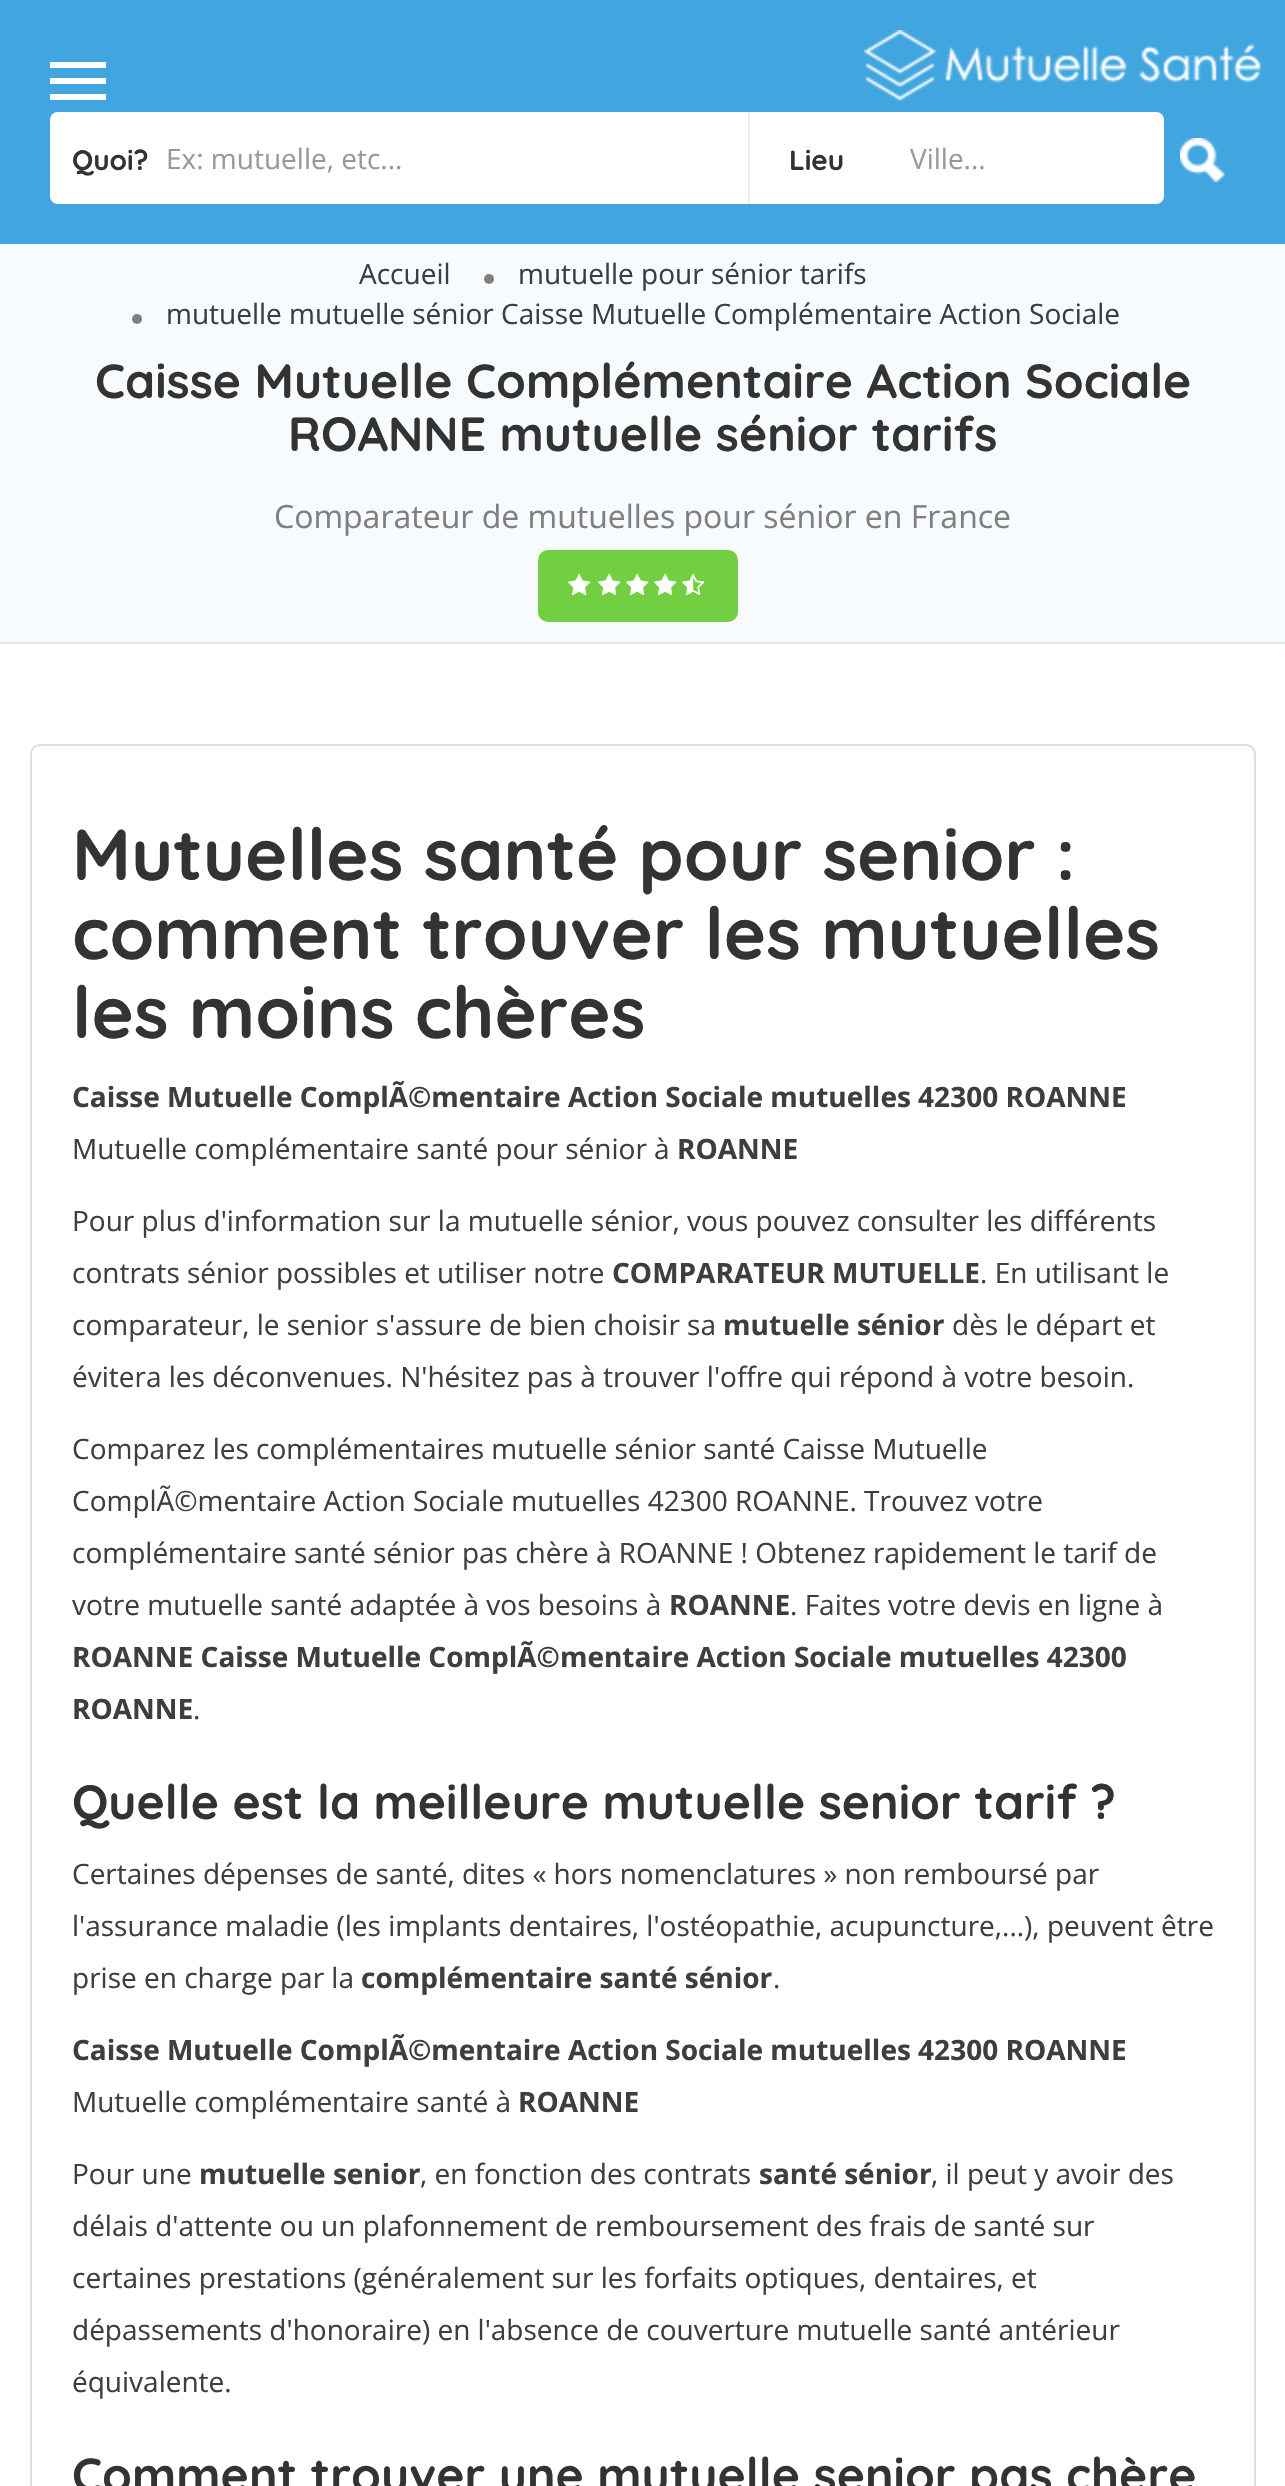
void draw(SkCanvas* canvas) {
  SkPaint paint;
  paint.setAntiAlias(true);
  auto face = [&](const char* family, int weight, float size, bool italic = false) {
    SkFontStyle style(weight, SkFontStyle::kNormal_Width,
      italic ? SkFontStyle::kItalic_Slant : SkFontStyle::kUpright_Slant);
    SkFont result(fontMgr->matchFamilyStyle(family, style), size);
    result.setSubpixel(true);
    return result;
  };
  auto paste = [&](const char* path, float x, float y, float w, float h) {
    auto image = SkImages::DeferredFromEncodedData(SkData::MakeFromFileName(path));
    canvas->drawImageRect(image, SkRect::MakeXYWH(x, y, w, h), SkSamplingOptions());
  };
  auto shape = [&](const char* data, bool evenOdd = false) {
    SkPath result = *SkParsePath::FromSVGString(data);
    if (evenOdd) result.setFillType(SkPathFillType::kEvenOdd);
    return result;
  };
  canvas->clear(0xfff7fbfe);
  paint.setColor(0xff41a6df);
  canvas->drawRect(SkRect::MakeXYWH(0, 0, 1285, 244), paint);
  paste("img/1.png", 864, 30, 397, 71);
  {
    const struct { float x, y, w, h; SkColor color; } items[] = {
      {50, 62, 56, 6, 0xffffffff},
      {50, 78, 56, 6, 0xffffffff},
      {50, 94, 56, 6, 0xffffffff},
    };
    for (auto [x, y, w, h, color] : items) {
      paint.setColor(color);
      canvas->drawRect(SkRect::MakeXYWH(x, y, w, h), paint);
    }
  }
  canvas->drawPath(shape("M58 112H750V204H58C53.5 204 50 200.5 50 196V120C50 115.5 53.5 112 58 112Z"), paint);
  paint.setColor(0xfff0f0f0);
  canvas->drawRect(SkRect::MakeXYWH(748, 112, 2, 92), paint);
  paint.setColor(0xffffffff);
  canvas->drawPath(shape("M750 112H1156C1160.5 112 1164 115.5 1164 120V196C1164 200.5 1160.5 204 1156 204H750Z"), paint);
  canvas->drawPath(shape("M750 112H1154C1159.5 112 1164 116.5 1164 122V194C1164 199.5 1159.5 204 1154 204H750Z"), paint);
  paste("img/2.png", 1180, 138, 46, 44);
  paint.setColor(0xffdbe7ef);
  canvas->drawRect(SkRect::MakeXYWH(0, 642, 1285, 2), paint);
  paint.setColor(0xff7f7f7f);
  canvas->drawCircle(489, 279, 5, paint);
  canvas->drawCircle(137, 319, 5, paint);
  paint.setColor(0xff73cf42);
  canvas->drawRoundRect(SkRect::MakeXYWH(538, 550, 200, 72), 10, 10, paint);
  paste("img/3.png", 568, 573, 23, 23);
  paste("img/3.png", 598, 573, 23, 23);
  paste("img/3.png", 626, 573, 23, 23);
  paste("img/3.png", 654, 573, 23, 23);
  paste("img/4.png", 682, 573, 23, 23);
  paint.setColor(0xffffffff);
  canvas->drawRect(SkRect::MakeXYWH(0, 644, 1285, 1842), paint);
  paint.setStroke(true);
  paint.setStrokeWidth(2);
  paint.setColor(0xffdedede);
  canvas->drawRoundRect(SkRect::MakeXYWH(31, 745, 1224, 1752), 9, 9, paint);
  auto f0 = face("Quicksand", 700, 28);
  paint.setStroke(false);
  paint.setColor(0xff333333);
  canvas->drawString("Quoi?", 72, 170, f0, paint);
  auto f1 = face("Open Sans", 400, 28);
  paint.setColor(0xff999999);
  canvas->drawString("Ex: mutuelle, etc...", 166, 169, f1, paint);
  paint.setColor(0xff333333);
  canvas->drawString("Lieu", 789, 170, f0, paint);
  paint.setColor(0xff999999);
  canvas->drawString("Ville...", 910, 169, f1, paint);
  paint.setColor(0xff363f48);
  {
    const struct { const char* s; float x, y; } items[] = {
      {"Accueil", 359, 284},
      {"mutuelle pour sénior tarifs", 518, 284},
      {"mutuelle mutuelle sénior Caisse Mutuelle Complémentaire Action Sociale", 166, 324},
    };
    for (auto [s, x, y] : items) {
      canvas->drawString(s, x, y, f1, paint);
    }
  }
  auto f2 = face("Quicksand", 700, 48);
  paint.setColor(0xff333333);
  canvas->drawString("Caisse Mutuelle Complémentaire Action Sociale", 95, 398, f2, paint);
  canvas->drawString("ROANNE mutuelle sénior tarifs", 288, 451, f2, paint);
  auto f3 = face("Open Sans", 400, 32);
  paint.setColor(0xff7f7f7f);
  canvas->drawString("Comparateur de mutuelles pour sénior en France", 274, 528, f3, paint);
  auto f4 = face("Quicksand", 700, 72);
  paint.setColor(0xff333333);
  {
    const struct { const char* s; float x, y; } items[] = {
      {"Mutuelles santé pour senior :", 72, 880},
      {"comment trouver les mutuelles", 72, 959},
      {"les moins chères", 72, 1038},
    };
    for (auto [s, x, y] : items) {
      canvas->drawString(s, x, y, f4, paint);
    }
  }
  auto f5 = face("Open Sans", 700, 28);
  paint.setColor(0xff3e3e3e);
  canvas->drawString("Caisse Mutuelle ComplÃ©mentaire Action Sociale mutuelles 42300 ROANNE", 72, 1107, f5, paint);
  canvas->drawString("Mutuelle complémentaire santé pour sénior à", 72, 1159, f1, paint);
  canvas->drawString("ROANNE", 677, 1159, f5, paint);
  canvas->drawString("Pour plus d'information sur la mutuelle sénior, vous pouvez consulter les différents", 72, 1231, f1, paint);
  canvas->drawString("contrats sénior possibles et utiliser notre", 72, 1283, f1, paint);
  canvas->drawString("COMPARATEUR MUTUELLE", 612, 1283, f5, paint);
  canvas->drawString(". En utilisant le", 980, 1283, f1, paint);
  canvas->drawString("comparateur, le senior s'assure de bien choisir sa", 72, 1335, f1, paint);
  canvas->drawString("mutuelle sénior", 723, 1335, f5, paint);
  {
    const struct { const char* s; float x, y; } items[] = {
      {"dès le départ et", 952, 1335},
      {"évitera les déconvenues. N'hésitez pas à trouver l'offre qui répond à votre besoin.", 72, 1387},
      {"Comparez les complémentaires mutuelle sénior santé Caisse Mutuelle", 72, 1459},
      {"ComplÃ©mentaire Action Sociale mutuelles 42300 ROANNE. Trouvez votre", 72, 1511},
      {"complémentaire santé sénior pas chère à ROANNE ! Obtenez rapidement le tarif de", 72, 1563},
      {"votre mutuelle santé adaptée à vos besoins à", 72, 1615},
    };
    for (auto [s, x, y] : items) {
      canvas->drawString(s, x, y, f1, paint);
    }
  }
  canvas->drawString("ROANNE", 669, 1615, f5, paint);
  canvas->drawString(". Faites votre devis en ligne à", 790, 1615, f1, paint);
  canvas->drawString("ROANNE Caisse Mutuelle ComplÃ©mentaire Action Sociale mutuelles 42300", 72, 1667, f5, paint);
  canvas->drawString("ROANNE", 72, 1719, f5, paint);
  canvas->drawString(".", 193, 1719, f1, paint);
  paint.setColor(0xff333333);
  canvas->drawString("Quelle est la meilleure mutuelle senior tarif ?", 72, 1819, f2, paint);
  paint.setColor(0xff3e3e3e);
  {
    const struct { const char* s; float x, y; } items[] = {
      {"Certaines dépenses de santé, dites « hors nomenclatures » non remboursé par", 72, 1884},
      {"l'assurance maladie (les implants dentaires, l'ostéopathie, acupuncture,...), peuvent être", 72, 1936},
      {"prise en charge par la", 72, 1988},
    };
    for (auto [s, x, y] : items) {
      canvas->drawString(s, x, y, f1, paint);
    }
  }
  canvas->drawString("complémentaire santé sénior", 361, 1988, f5, paint);
  canvas->drawString(".", 773, 1988, f1, paint);
  canvas->drawString("Caisse Mutuelle ComplÃ©mentaire Action Sociale mutuelles 42300 ROANNE", 72, 2060, f5, paint);
  canvas->drawString("Mutuelle complémentaire santé à", 72, 2112, f1, paint);
  canvas->drawString("ROANNE", 518, 2112, f5, paint);
  canvas->drawString("Pour une", 72, 2184, f1, paint);
  canvas->drawString("mutuelle senior", 199, 2184, f5, paint);
  canvas->drawString(", en fonction des contrats", 420, 2184, f1, paint);
  canvas->drawString("santé sénior", 759, 2184, f5, paint);
  {
    const struct { const char* s; float x, y; } items[] = {
      {", il peut y avoir des", 931, 2184},
      {"délais d'attente ou un plafonnement de remboursement des frais de santé sur", 72, 2236},
      {"certaines prestations (généralement sur les forfaits optiques, dentaires, et", 72, 2288},
      {"dépassements d'honoraire) en l'absence de couverture mutuelle santé antérieur", 72, 2340},
      {"équivalente.", 72, 2392},
    };
    for (auto [s, x, y] : items) {
      canvas->drawString(s, x, y, f1, paint);
    }
  }
  paint.setColor(0xff333333);
  canvas->drawString("Comment trouver une mutuelle senior pas chère", 72, 2492, f2, paint);
}
